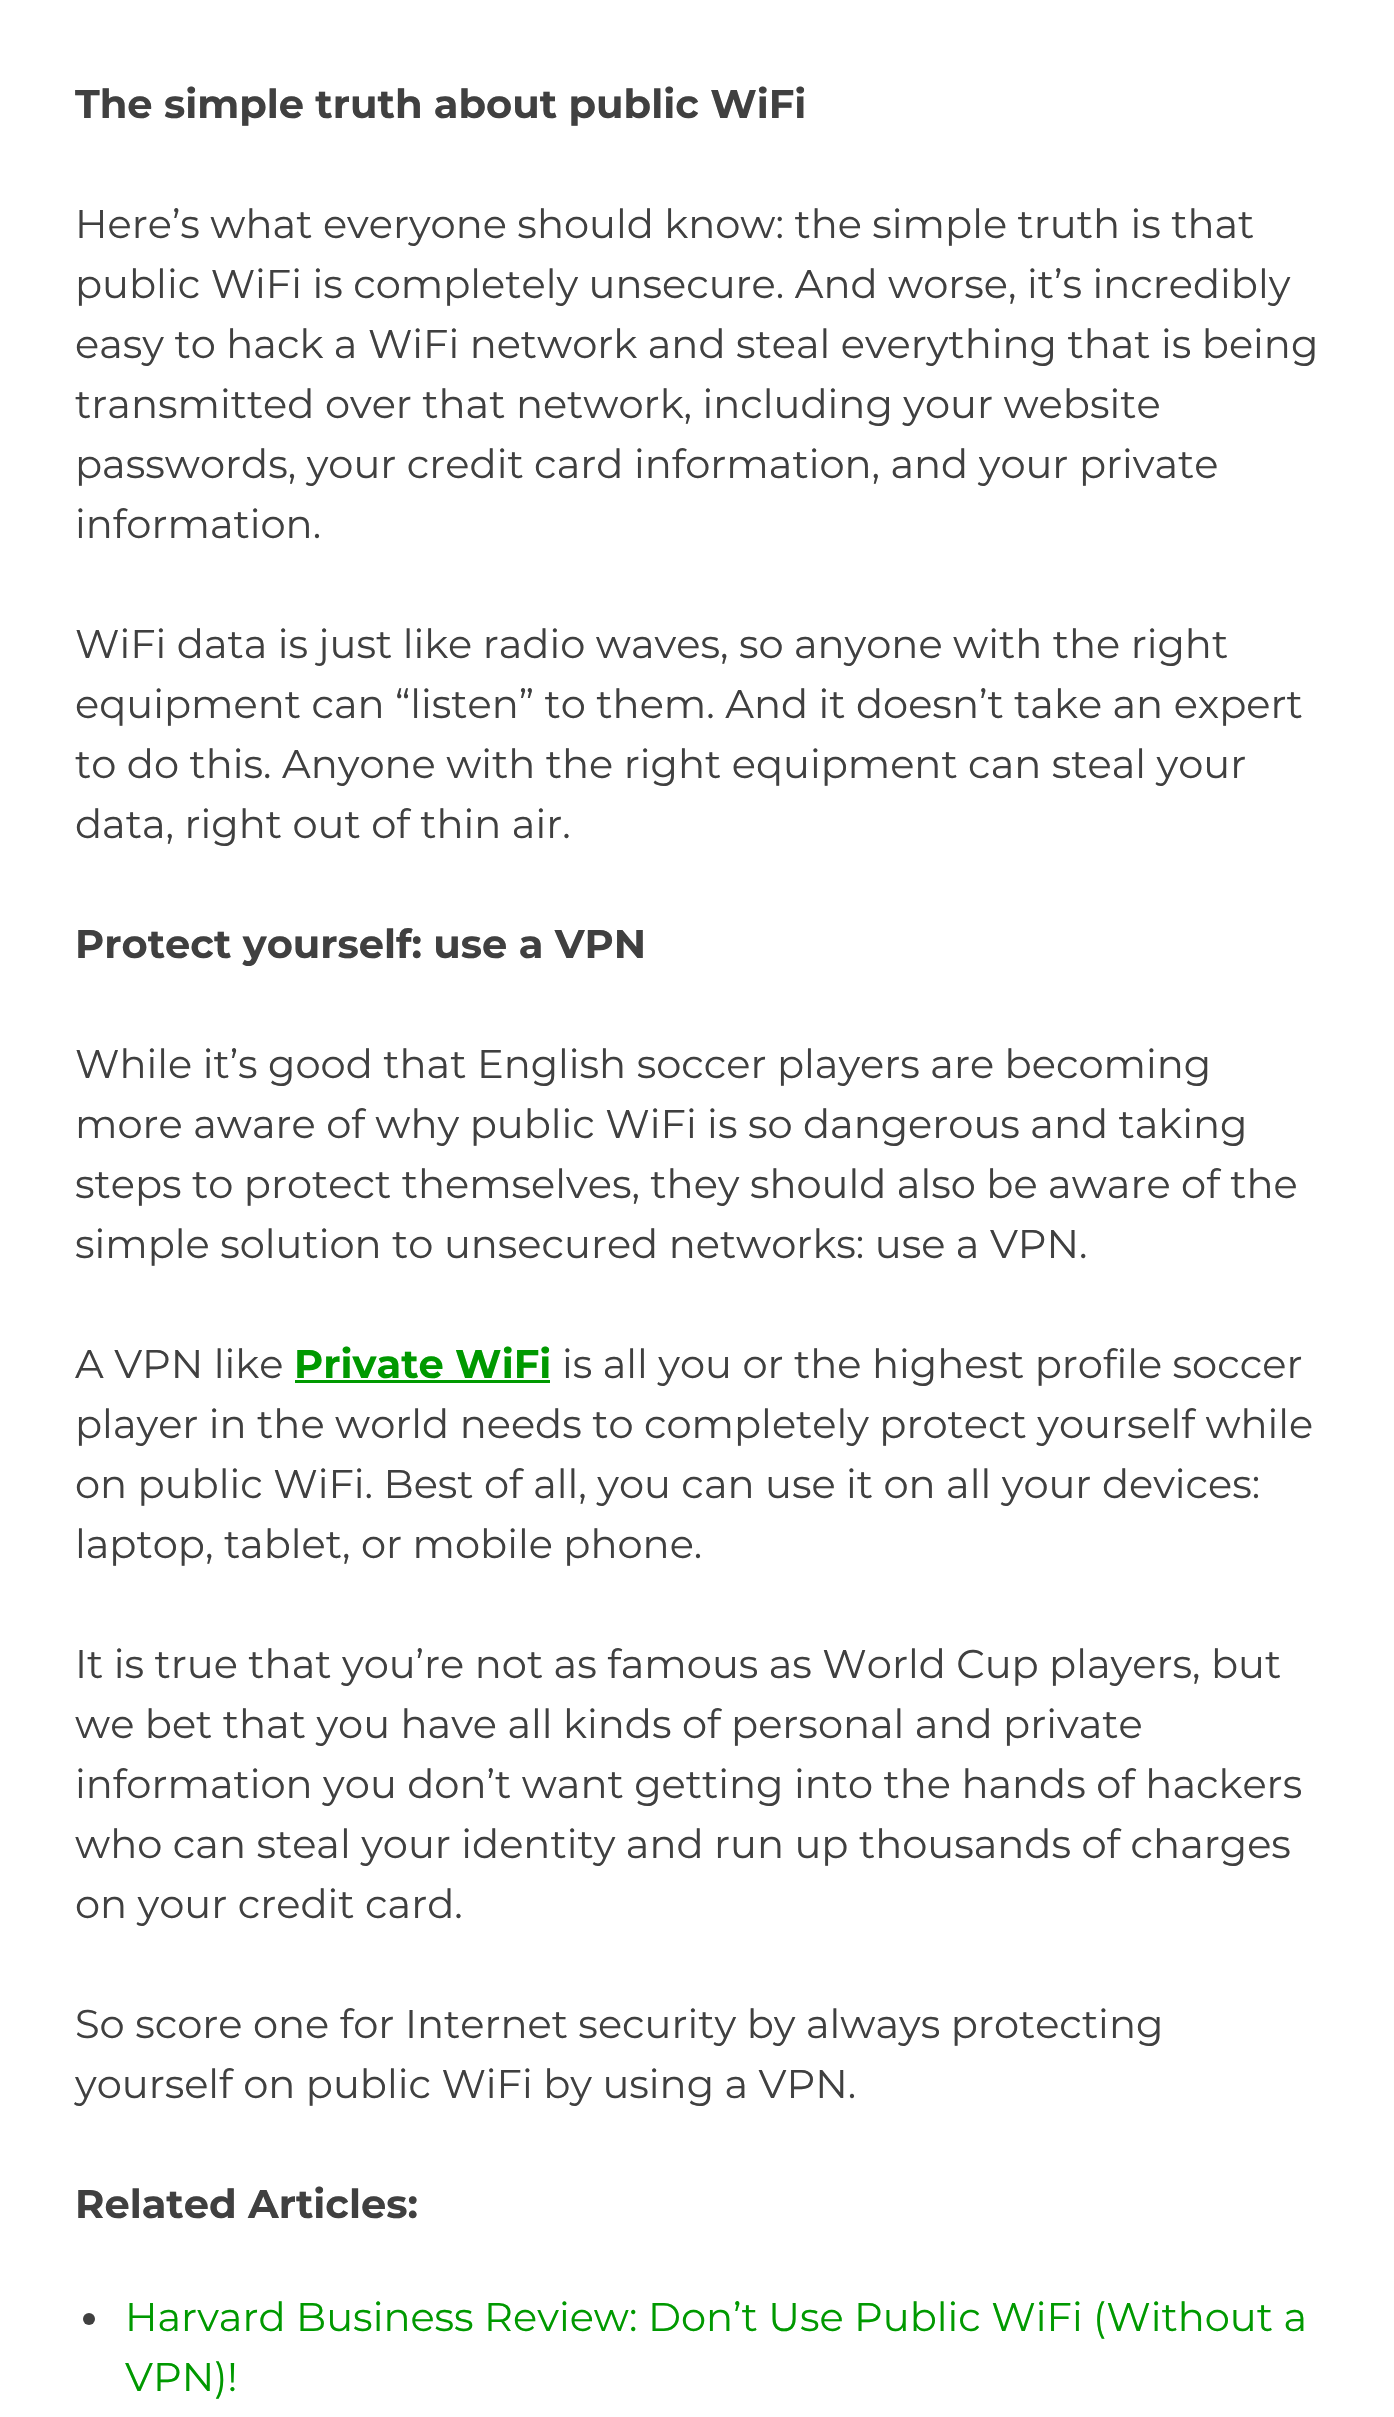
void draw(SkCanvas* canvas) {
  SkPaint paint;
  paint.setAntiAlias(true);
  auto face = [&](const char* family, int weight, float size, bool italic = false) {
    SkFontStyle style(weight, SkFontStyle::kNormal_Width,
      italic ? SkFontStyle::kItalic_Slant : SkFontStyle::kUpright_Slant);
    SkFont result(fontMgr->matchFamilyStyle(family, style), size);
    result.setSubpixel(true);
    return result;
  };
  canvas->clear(0xffffffff);
  paint.setColor(0xff009900);
  canvas->drawRect(SkRect::MakeXYWH(295, 1380, 255, 3), paint);
  paint.setColor(0xff404040);
  canvas->drawCircle(89, 2319, 6, paint);
  auto f0 = face("Montserrat", 700, 40);
  canvas->drawString("The simple truth about public WiFi", 75, 118, f0, paint);
  auto f1 = face("Montserrat", 400, 40);
  {
    const struct { const char* s; float x, y; } items[] = {
      {"Here’s what everyone should know: the simple truth is that", 75, 238},
      {"public WiFi is completely unsecure. And worse, it’s incredibly", 75, 298},
      {"easy to hack a WiFi network and steal everything that is being", 75, 358},
      {"transmitted over that network, including your website", 75, 418},
      {"passwords, your credit card information, and your private", 75, 478},
      {"information.", 75, 538},
      {"WiFi data is just like radio waves, so anyone with the right", 75, 658},
      {"equipment can “listen” to them. And it doesn’t take an expert", 75, 718},
      {"to do this. Anyone with the right equipment can steal your", 75, 778},
      {"data, right out of thin air.", 75, 838},
    };
    for (auto [s, x, y] : items) {
      canvas->drawString(s, x, y, f1, paint);
    }
  }
  canvas->drawString("Protect yourself: use a VPN", 75, 958, f0, paint);
  {
    const struct { const char* s; float x, y; } items[] = {
      {"While it’s good that English soccer players are becoming", 75, 1078},
      {"more aware of why public WiFi is so dangerous and taking", 75, 1138},
      {"steps to protect themselves, they should also be aware of the", 75, 1198},
      {"simple solution to unsecured networks: use a VPN.", 75, 1258},
      {"A VPN like", 75, 1378},
    };
    for (auto [s, x, y] : items) {
      canvas->drawString(s, x, y, f1, paint);
    }
  }
  paint.setColor(0xff009900);
  canvas->drawString("Private WiFi", 294, 1378, f0, paint);
  paint.setColor(0xff404040);
  {
    const struct { const char* s; float x, y; } items[] = {
      {"is all you or the highest profile soccer", 562, 1378},
      {"player in the world needs to completely protect yourself while", 75, 1438},
      {"on public WiFi. Best of all, you can use it on all your devices:", 75, 1498},
      {"laptop, tablet, or mobile phone.", 75, 1558},
      {"It is true that you’re not as famous as World Cup players, but", 75, 1678},
      {"we bet that you have all kinds of personal and private", 75, 1738},
      {"information you don’t want getting into the hands of hackers", 75, 1798},
      {"who can steal your identity and run up thousands of charges", 75, 1858},
      {"on your credit card.", 75, 1918},
      {"So score one for Internet security by always protecting", 75, 2038},
      {"yourself on public WiFi by using a VPN.", 75, 2098},
    };
    for (auto [s, x, y] : items) {
      canvas->drawString(s, x, y, f1, paint);
    }
  }
  canvas->drawString("Related Articles:", 75, 2218, f0, paint);
  paint.setColor(0xff009900);
  canvas->drawString("Harvard Business Review: Don’t Use Public WiFi (Without a", 125, 2331, f1, paint);
  canvas->drawString("VPN)!", 125, 2391, f1, paint);
}
